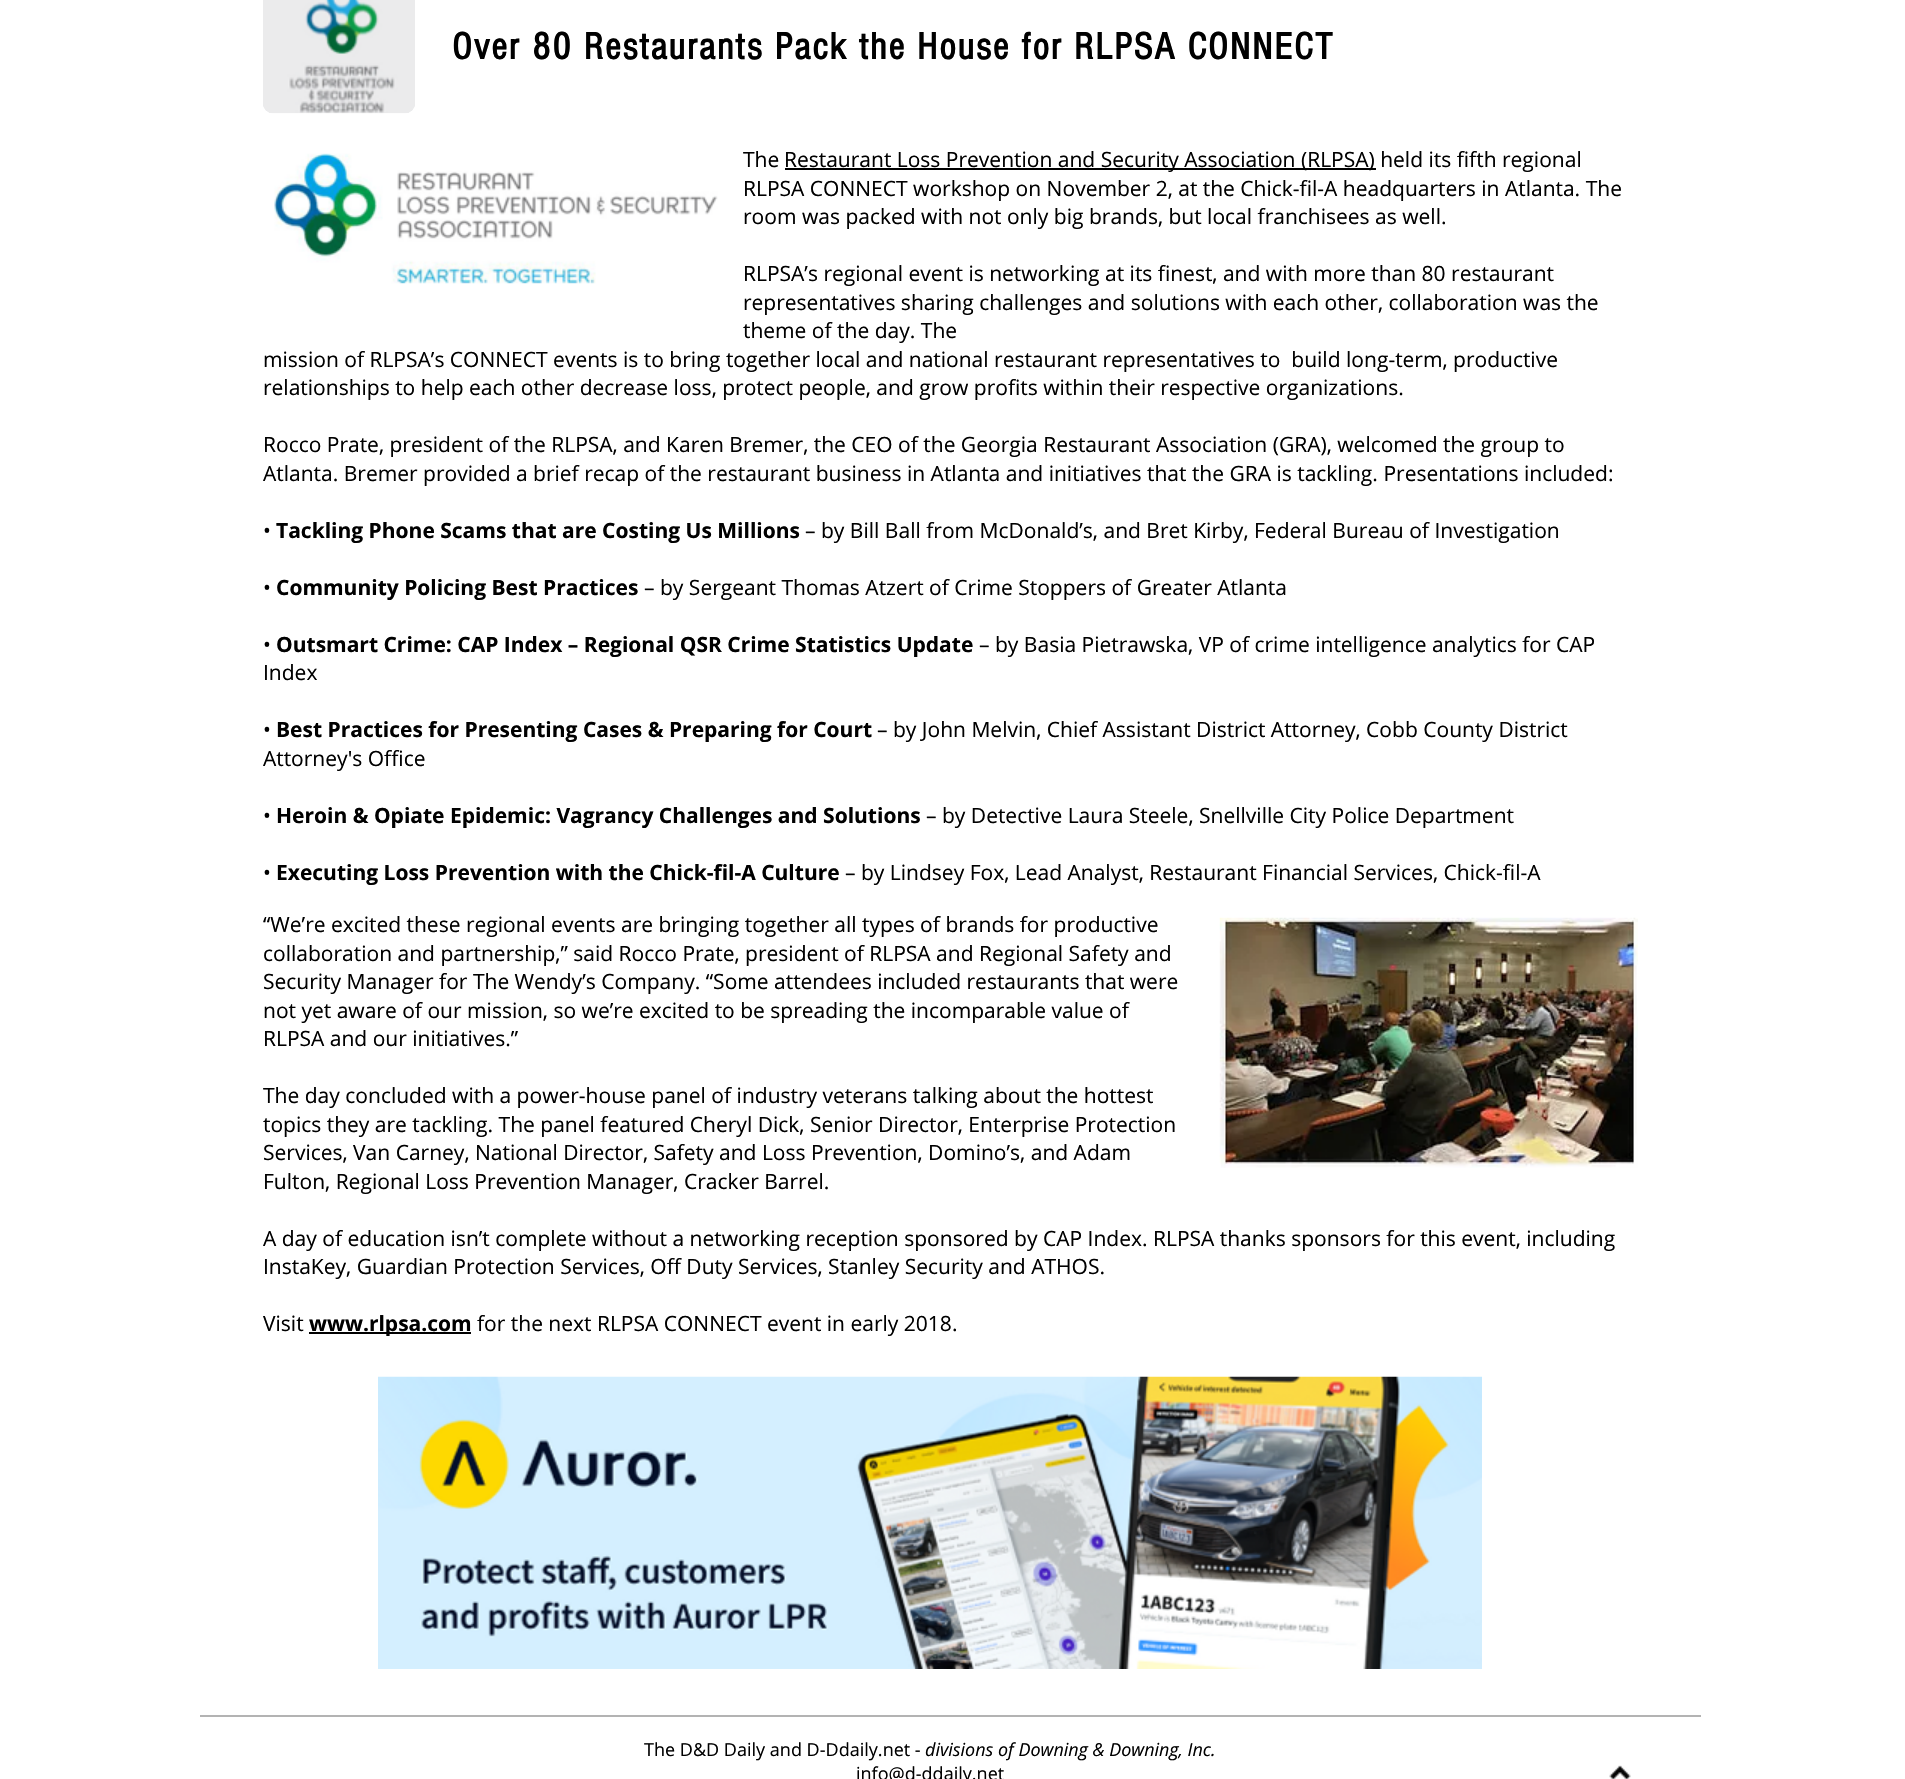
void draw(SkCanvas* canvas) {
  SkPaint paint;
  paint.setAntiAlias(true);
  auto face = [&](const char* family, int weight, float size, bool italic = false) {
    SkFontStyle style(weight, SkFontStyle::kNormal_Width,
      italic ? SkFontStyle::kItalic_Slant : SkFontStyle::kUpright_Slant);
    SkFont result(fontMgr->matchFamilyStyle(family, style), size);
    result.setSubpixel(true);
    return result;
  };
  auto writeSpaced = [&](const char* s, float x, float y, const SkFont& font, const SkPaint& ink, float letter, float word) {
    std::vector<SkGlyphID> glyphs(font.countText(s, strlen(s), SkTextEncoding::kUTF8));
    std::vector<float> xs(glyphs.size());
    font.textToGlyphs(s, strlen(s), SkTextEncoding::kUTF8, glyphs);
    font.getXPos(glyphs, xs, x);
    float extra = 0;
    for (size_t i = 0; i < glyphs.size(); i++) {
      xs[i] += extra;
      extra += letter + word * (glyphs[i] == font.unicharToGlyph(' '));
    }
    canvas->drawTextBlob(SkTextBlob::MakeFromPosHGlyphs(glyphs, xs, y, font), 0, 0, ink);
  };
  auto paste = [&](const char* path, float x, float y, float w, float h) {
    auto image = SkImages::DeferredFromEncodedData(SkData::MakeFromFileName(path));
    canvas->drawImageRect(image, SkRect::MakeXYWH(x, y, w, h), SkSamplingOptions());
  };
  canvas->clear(0xffffffff);
  paste("img/1.png", 263, 0, 152, 114);
  paste("img/2.png", 274, 153, 444, 131);
  paint.setColor(0xff000000);
  canvas->drawRect(SkRect::MakeXYWH(785, 168, 591, 2), paint);
  paste("img/3.png", 1219, 917, 419, 251);
  canvas->drawRect(SkRect::MakeXYWH(309, 1332, 162, 2), paint);
  paste("img/4.png", 378, 1376, 1104, 293);
  paint.setColor(0xffb3b3b3);
  canvas->drawRect(SkRect::MakeXYWH(200, 1715, 1501, 2), paint);
  paste("img/5.png", 1609, 1765, 22, 14);
  auto f0 = face("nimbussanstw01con", 700, 39);
  paint.setColor(0xff000000);
  writeSpaced("Over 80 Restaurants Pack the House for RLPSA CONNECT", 452, 59, f0, paint, 1.95f, 0);
  auto f1 = face("Open Sans", 400, 21);
  {
    const struct { const char* s; float x, y; } items[] = {
      {"The", 743, 167},
      {"Restaurant Loss Prevention and Security Association (RLPSA) held its fifth regional", 784, 167},
      {"RLPSA CONNECT workshop on November 2, at the Chick-fil-A headquarters in Atlanta. The", 743, 196},
      {"room was packed with not only big brands, but local franchisees as well.", 743, 224},
      {"RLPSA’s regional event is networking at its finest, and with more than 80 restaurant", 743, 281},
      {"representatives sharing challenges and solutions with each other, collaboration was the", 743, 310},
      {"theme of the day. The", 743, 338},
      {"mission of RLPSA’s CONNECT events is to bring together local and national restaurant representatives to  build long-term, productive", 263, 367},
      {"relationships to help each other decrease loss, protect people, and grow profits within their respective organizations.", 263, 395},
      {"Rocco Prate, president of the RLPSA, and Karen Bremer, the CEO of the Georgia Restaurant Association (GRA), welcomed the group to", 263, 452},
      {"Atlanta. Bremer provided a brief recap of the restaurant business in Atlanta and initiatives that the GRA is tackling. Presentations included:", 263, 481},
      {"•", 263, 538},
    };
    for (auto [s, x, y] : items) {
      canvas->drawString(s, x, y, f1, paint);
    }
  }
  auto f2 = face("Open Sans", 700, 21);
  canvas->drawString("Tackling Phone Scams that are Costing Us Millions", 276, 538, f2, paint);
  canvas->drawString("– by Bill Ball from McDonald’s, and Bret Kirby, Federal Bureau of Investigation", 805, 538, f1, paint);
  canvas->drawString("•", 263, 595, f1, paint);
  canvas->drawString("Community Policing Best Practices", 276, 595, f2, paint);
  canvas->drawString("– by Sergeant Thomas Atzert of Crime Stoppers of Greater Atlanta", 644, 595, f1, paint);
  canvas->drawString("•", 263, 652, f1, paint);
  canvas->drawString("Outsmart Crime: CAP Index – Regional QSR Crime Statistics Update", 276, 652, f2, paint);
  {
    const struct { const char* s; float x, y; } items[] = {
      {"– by Basia Pietrawska, VP of crime intelligence analytics for CAP", 979, 652},
      {"Index", 263, 680},
      {"•", 263, 737},
    };
    for (auto [s, x, y] : items) {
      canvas->drawString(s, x, y, f1, paint);
    }
  }
  canvas->drawString("Best Practices for Presenting Cases & Preparing for Court", 276, 737, f2, paint);
  {
    const struct { const char* s; float x, y; } items[] = {
      {"– by John Melvin, Chief Assistant District Attorney, Cobb County District", 877, 737},
      {"Attorney's Office", 263, 766},
      {"•", 263, 823},
    };
    for (auto [s, x, y] : items) {
      canvas->drawString(s, x, y, f1, paint);
    }
  }
  canvas->drawString("Heroin & Opiate Epidemic: Vagrancy Challenges and Solutions", 276, 823, f2, paint);
  canvas->drawString("– by Detective Laura Steele, Snellville City Police Department", 926, 823, f1, paint);
  canvas->drawString("•", 263, 880, f1, paint);
  canvas->drawString("Executing Loss Prevention with the Chick-fil-A Culture", 276, 880, f2, paint);
  {
    const struct { const char* s; float x, y; } items[] = {
      {"– by Lindsey Fox, Lead Analyst, Restaurant Financial Services, Chick-fil-A", 845, 880},
      {"“We’re excited these regional events are bringing together all types of brands for productive", 263, 932},
      {"collaboration and partnership,” said Rocco Prate, president of RLPSA and Regional Safety and", 263, 961},
      {"Security Manager for The Wendy’s Company. “Some attendees included restaurants that were", 263, 989},
      {"not yet aware of our mission, so we’re excited to be spreading the incomparable value of", 263, 1018},
      {"RLPSA and our initiatives.”", 263, 1046},
      {"The day concluded with a power-house panel of industry veterans talking about the hottest", 263, 1103},
      {"topics they are tackling. The panel featured Cheryl Dick, Senior Director, Enterprise Protection", 263, 1132},
      {"Services, Van Carney, National Director, Safety and Loss Prevention, Domino’s, and Adam", 263, 1160},
      {"Fulton, Regional Loss Prevention Manager, Cracker Barrel.", 263, 1189},
      {"A day of education isn’t complete without a networking reception sponsored by CAP Index. RLPSA thanks sponsors for this event, including", 263, 1246},
      {"InstaKey, Guardian Protection Services, Off Duty Services, Stanley Security and ATHOS.", 263, 1274},
      {"Visit", 263, 1331},
    };
    for (auto [s, x, y] : items) {
      canvas->drawString(s, x, y, f1, paint);
    }
  }
  canvas->drawString("www.rlpsa.com", 309, 1331, f2, paint);
  canvas->drawString("for the next RLPSA CONNECT event in early 2018.", 477, 1331, f1, paint);
  auto f3 = face("Open Sans", 400, 18);
  canvas->drawString("The D&D Daily and D-Ddaily.net -", 644, 1756, f3, paint);
  auto f4 = face("Open Sans", 400, 18, true);
  canvas->drawString("divisions of Downing & Downing, Inc.", 925, 1756, f4, paint);
  canvas->drawString("info@d-ddaily.net", 856, 1780, f3, paint);
}
